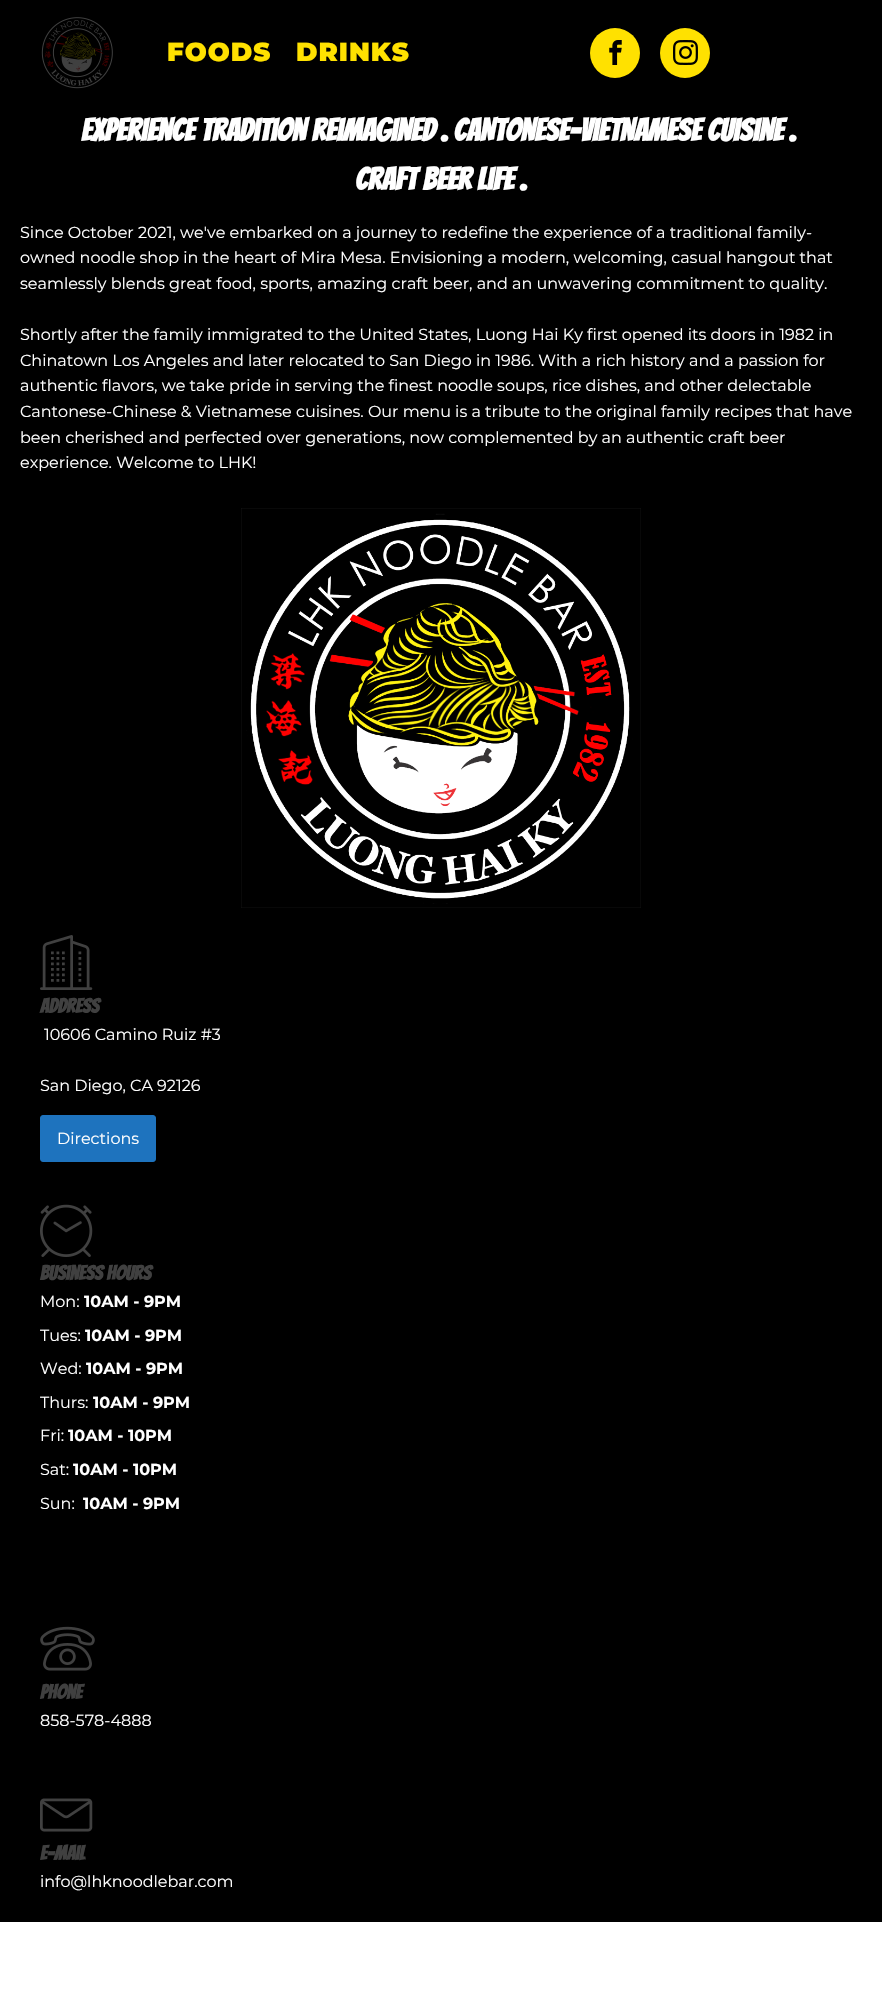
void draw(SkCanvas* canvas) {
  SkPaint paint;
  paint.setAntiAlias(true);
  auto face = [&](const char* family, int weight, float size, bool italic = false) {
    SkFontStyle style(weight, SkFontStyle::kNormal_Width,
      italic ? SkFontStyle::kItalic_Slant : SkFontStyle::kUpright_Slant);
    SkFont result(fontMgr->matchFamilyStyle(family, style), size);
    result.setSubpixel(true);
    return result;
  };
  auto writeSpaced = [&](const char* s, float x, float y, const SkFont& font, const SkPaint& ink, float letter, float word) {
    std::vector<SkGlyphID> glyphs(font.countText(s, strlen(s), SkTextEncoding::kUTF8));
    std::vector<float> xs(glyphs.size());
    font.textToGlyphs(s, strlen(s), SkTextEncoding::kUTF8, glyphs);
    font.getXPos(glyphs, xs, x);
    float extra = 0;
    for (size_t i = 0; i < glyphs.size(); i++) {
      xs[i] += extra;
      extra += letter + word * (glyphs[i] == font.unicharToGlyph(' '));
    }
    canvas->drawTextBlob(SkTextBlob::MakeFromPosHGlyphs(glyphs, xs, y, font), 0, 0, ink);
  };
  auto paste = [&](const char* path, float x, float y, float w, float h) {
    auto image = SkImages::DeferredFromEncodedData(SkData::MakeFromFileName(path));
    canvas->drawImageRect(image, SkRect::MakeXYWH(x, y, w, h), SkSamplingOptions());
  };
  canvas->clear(0xffffffff);
  paint.setColor(0xff000000);
  canvas->drawRect(SkRect::MakeXYWH(0, 0, 882, 1922), paint);
  paste("img/1.png", 41, 17, 72, 72);
  paint.setColor(0xffffe100);
  canvas->drawCircle(615, 53, 25, paint);
  paste("img/2.png", 609, 40, 13, 25);
  canvas->drawCircle(685, 53, 25, paint);
  paste("img/3.png", 673, 40, 25, 25);
  paste("img/4.png", 241, 508, 400, 400);
  paste("img/5.png", 40, 935, 53, 55);
  paint.setColor(0xff1e73be);
  canvas->drawRoundRect(SkRect::MakeXYWH(40.5f, 1115.5f, 115, 46), 2.5f, 2.5f, paint);
  paint.setStroke(true);
  paint.setStrokeWidth(1);
  canvas->drawRoundRect(SkRect::MakeXYWH(40.5f, 1115.5f, 115, 46), 2.5f, 2.5f, paint);
  paste("img/6.png", 40, 1204, 53, 53);
  paste("img/7.png", 40, 1626, 55, 45);
  paste("img/8.png", 40, 1798, 53, 34);
  auto f0 = face("Montserrat", 900, 26);
  paint.setStroke(false);
  paint.setColor(0xffffe100);
  writeSpaced("FOODS", 167, 61, f0, paint, 1, 0);
  writeSpaced("DRINKS", 296, 61, f0, paint, 1, 0);
  auto f1 = face("Bangers", 700, 31);
  paint.setColor(0xffffffff);
  canvas->drawString("Experience tradition reimagined . CANtonese-Vietnamese Cuisine .", 81, 141, f1, paint);
  canvas->drawString("Craft Beer life .", 355, 190, f1, paint);
  auto f2 = face("Montserrat", 400, 16);
  {
    const struct { const char* s; float x, y; } items[] = {
      {"Since October 2021, we've embarked on a journey to redefine the experience of a traditional family-", 20, 238},
      {"owned noodle shop in the heart of Mira Mesa. Envisioning a modern, welcoming, casual hangout that", 20, 263},
      {"seamlessly blends great food, sports, amazing craft beer, and an unwavering commitment to quality.", 20, 289},
      {"Shortly after the family immigrated to the United States, Luong Hai Ky first opened its doors in 1982 in", 20, 340},
      {"Chinatown Los Angeles and later relocated to San Diego in 1986. With a rich history and a passion for", 20, 366},
      {"authentic flavors, we take pride in serving the finest noodle soups, rice dishes, and other delectable", 20, 391},
      {"Cantonese-Chinese & Vietnamese cuisines. Our menu is a tribute to the original family recipes that have", 20, 417},
      {"been cherished and perfected over generations, now complemented by an authentic craft beer", 20, 443},
      {"experience. Welcome to LHK!", 20, 468},
    };
    for (auto [s, x, y] : items) {
      canvas->drawString(s, x, y, f2, paint);
    }
  }
  auto f3 = face("Bangers", 700, 20);
  paint.setColor(0xff404040);
  canvas->drawString("address", 40, 1013, f3, paint);
  paint.setColor(0xffffffff);
  {
    const struct { const char* s; float x, y; } items[] = {
      {"10606 Camino Ruiz #3", 44, 1040},
      {"San Diego, CA 92126", 40, 1091},
      {"Directions", 57, 1144},
    };
    for (auto [s, x, y] : items) {
      canvas->drawString(s, x, y, f2, paint);
    }
  }
  paint.setColor(0xff404040);
  canvas->drawString("Business Hours", 40, 1280, f3, paint);
  paint.setColor(0xffffffff);
  canvas->drawString("Mon:", 40, 1307, f2, paint);
  auto f4 = face("Montserrat", 700, 16);
  canvas->drawString("10AM - 9PM", 84, 1307, f4, paint);
  canvas->drawString("Tues:", 40, 1341, f2, paint);
  canvas->drawString("10AM - 9PM", 85, 1341, f4, paint);
  canvas->drawString("Wed:", 40, 1374, f2, paint);
  canvas->drawString("10AM - 9PM", 86, 1374, f4, paint);
  canvas->drawString("Thurs:", 40, 1408, f2, paint);
  canvas->drawString("10AM - 9PM", 93, 1408, f4, paint);
  canvas->drawString("Fri:", 40, 1441, f2, paint);
  canvas->drawString("10AM - 10PM", 68, 1441, f4, paint);
  canvas->drawString("Sat:", 40, 1475, f2, paint);
  canvas->drawString("10AM - 10PM", 73, 1475, f4, paint);
  canvas->drawString("Sun:", 40, 1509, f2, paint);
  canvas->drawString("10AM - 9PM", 83, 1509, f4, paint);
  paint.setColor(0xff404040);
  canvas->drawString("phone", 40, 1699, f3, paint);
  paint.setColor(0xffffffff);
  canvas->drawString("858-578-4888", 40, 1726, f2, paint);
  paint.setColor(0xff404040);
  canvas->drawString("E-mail", 40, 1860, f3, paint);
  paint.setColor(0xffffffff);
  canvas->drawString("info@lhknoodlebar.com", 40, 1887, f2, paint);
}
